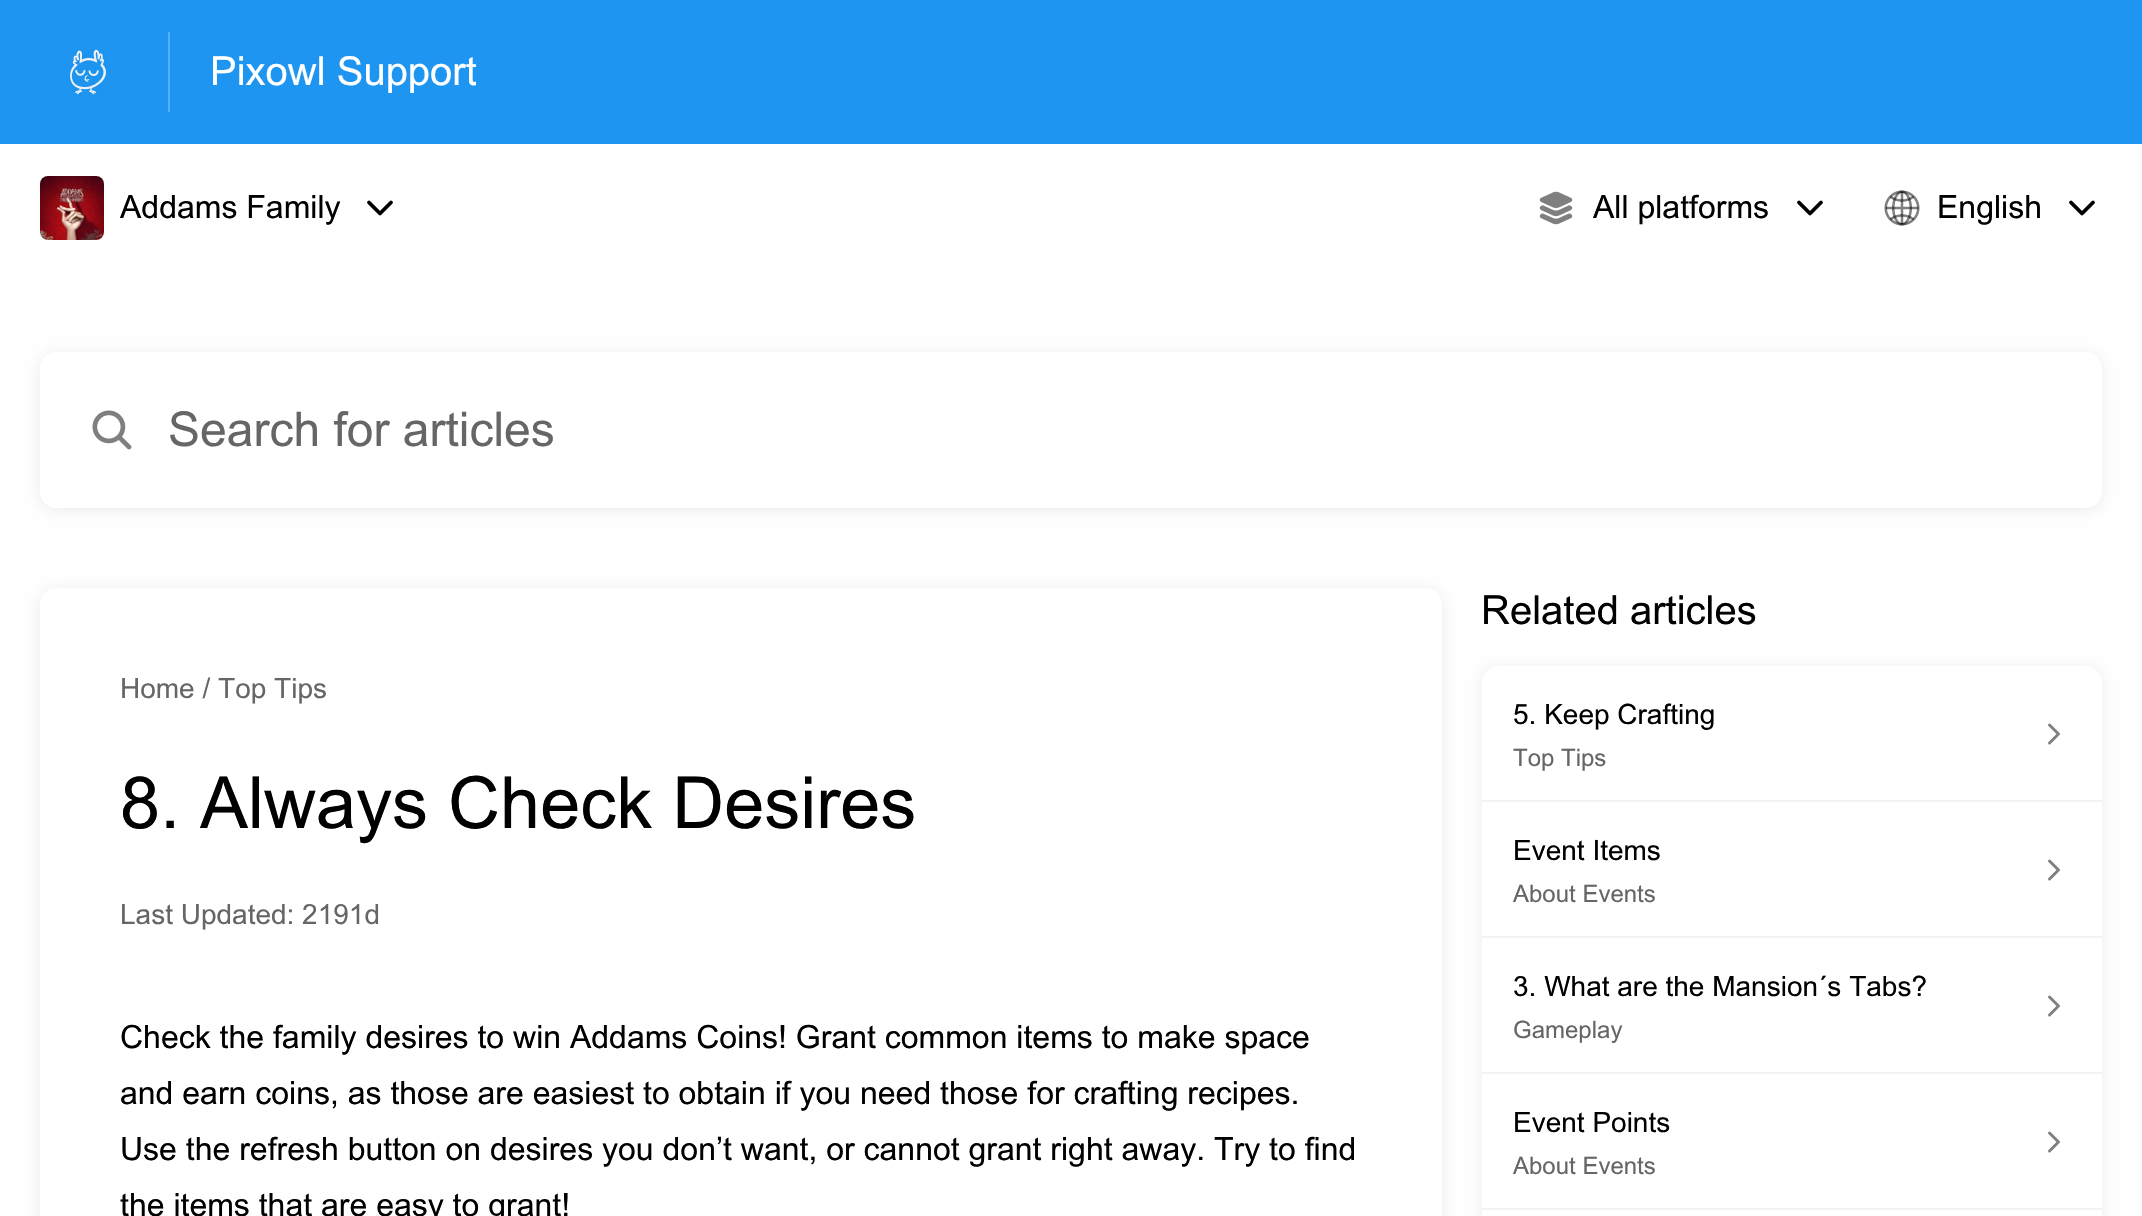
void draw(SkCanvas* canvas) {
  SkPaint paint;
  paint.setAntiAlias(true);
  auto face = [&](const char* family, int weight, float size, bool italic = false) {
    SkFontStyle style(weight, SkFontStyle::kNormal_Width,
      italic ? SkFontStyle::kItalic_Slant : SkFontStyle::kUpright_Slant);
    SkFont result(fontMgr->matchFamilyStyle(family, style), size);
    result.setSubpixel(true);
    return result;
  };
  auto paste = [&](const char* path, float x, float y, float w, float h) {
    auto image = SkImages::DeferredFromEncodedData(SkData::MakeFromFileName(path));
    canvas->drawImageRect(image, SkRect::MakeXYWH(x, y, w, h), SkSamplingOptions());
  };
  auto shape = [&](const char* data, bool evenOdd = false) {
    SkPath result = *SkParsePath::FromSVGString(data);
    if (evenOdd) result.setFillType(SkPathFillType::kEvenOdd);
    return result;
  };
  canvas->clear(0xffffffff);
  paint.setColor(0xff1e95f1);
  canvas->drawRect(SkRect::MakeXYWH(0, 0, 2142, 144), paint);
  paint.setColor(0xff56b0f5);
  canvas->drawRect(SkRect::MakeXYWH(168, 32, 2, 80), paint);
  paste("img/1.png", 69, 49, 38, 47);
  paste("img/2.png", 40, 176, 64, 64);
  paint.setStroke(true);
  paint.setStrokeWidth(3.8f);
  paint.setStrokeCap(SkPaint::kRound_Cap);
  paint.setStrokeJoin(SkPaint::kRound_Join);
  paint.setColor(0xff000000);
  canvas->drawPath(shape("M369 202.5L380 213.5L391 202.5"), paint);
  paste("img/3.png", 1539, 191, 34, 34);
  canvas->drawPath(shape("M1799 202.5L1810 213.5L1821 202.5"), paint);
  paste("img/4.png", 1884, 190, 36, 36);
  canvas->drawPath(shape("M2071 202.5L2082 213.5L2093 202.5"), paint);
  paint.setStroke(false);
  paint.setColor(0x14000000);
  paint.setMaskFilter(SkMaskFilter::MakeBlur(kNormal_SkBlurStyle, 8));
  canvas->drawRoundRect(SkRect::MakeXYWH(40, 354, 2062, 156), 16, 16, paint);
  paint.setMaskFilter(nullptr);
  paint.setColor(0xffffffff);
  canvas->drawRoundRect(SkRect::MakeXYWH(40, 352, 2062, 156), 16, 16, paint);
  paste("img/5.png", 92, 410, 40, 40);
  paint.setColor(0x14000000);
  paint.setMaskFilter(SkMaskFilter::MakeBlur(kNormal_SkBlurStyle, 8));
  canvas->drawRoundRect(SkRect::MakeXYWH(40, 590, 1402, 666), 16, 16, paint);
  paint.setMaskFilter(nullptr);
  paint.setColor(0xffffffff);
  canvas->drawPath(shape("M56 588H1426C1435 588 1442 595 1442 604V1216H40V604C40 595 47 588 56 588Z"), paint);
  paint.setColor(0x14000000);
  paint.setMaskFilter(SkMaskFilter::MakeBlur(kNormal_SkBlurStyle, 8));
  canvas->drawRoundRect(SkRect::MakeXYWH(1482, 668, 620, 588), 16, 16, paint);
  paint.setMaskFilter(nullptr);
  paint.setColor(0xffffffff);
  canvas->drawPath(shape("M1498 666H2086C2095 666 2102 673 2102 682V1216H1482V682C1482 673 1489 666 1498 666Z"), paint);
  paint.setColor(0xfff2f2f2);
  canvas->drawRect(SkRect::MakeXYWH(1482, 800, 620, 2), paint);
  paint.setStroke(true);
  paint.setStrokeWidth(3);
  paint.setColor(0xff808080);
  canvas->drawPath(shape("M2049.5 725L2058.5 734L2049.5 743"), paint);
  paint.setStroke(false);
  paint.setColor(0xfff2f2f2);
  canvas->drawRect(SkRect::MakeXYWH(1482, 936, 620, 2), paint);
  paint.setStroke(true);
  paint.setColor(0xff808080);
  canvas->drawPath(shape("M2049.5 861L2058.5 870L2049.5 879"), paint);
  paint.setStroke(false);
  paint.setColor(0xfff2f2f2);
  canvas->drawRect(SkRect::MakeXYWH(1482, 1072, 620, 2), paint);
  paint.setStroke(true);
  paint.setColor(0xff808080);
  canvas->drawPath(shape("M2049.5 997L2058.5 1006L2049.5 1015"), paint);
  paint.setStroke(false);
  paint.setColor(0xfff2f2f2);
  canvas->drawRect(SkRect::MakeXYWH(1482, 1208, 620, 2), paint);
  paint.setStroke(true);
  paint.setColor(0xff808080);
  canvas->drawPath(shape("M2049.5 1133L2058.5 1142L2049.5 1151"), paint);
  canvas->save();
  canvas->clipRect(SkRect::MakeXYWH(210, 50, 266, 46));
  auto f0 = face("Arial", 400, 40);
  paint.setStroke(false);
  paint.setColor(0xffffffff);
  canvas->drawString("Pixowl Support", 210, 85, f0, paint);
  canvas->restore();
  auto f1 = face("Arial", 400, 32);
  paint.setColor(0xff000000);
  {
    const struct { const char* s; float x, y; } items[] = {
      {"Addams Family", 120, 218},
      {"All platforms", 1593, 218},
      {"English", 1937, 218},
    };
    for (auto [s, x, y] : items) {
      canvas->drawString(s, x, y, f1, paint);
    }
  }
  auto f2 = face("Arial", 400, 48);
  paint.setColor(0xff666666);
  canvas->drawString("Search for articles", 168, 446, f2, paint);
  auto f3 = face("Arial", 400, 28);
  canvas->drawString("Home / Top Tips", 120, 698, f3, paint);
  auto f4 = face("Arial", 400, 72);
  paint.setColor(0xff000000);
  canvas->drawString("8. Always Check Desires", 120, 828, f4, paint);
  paint.setColor(0xff666666);
  canvas->drawString("Last Updated: 2191d", 120, 924, f3, paint);
  paint.setColor(0xff000000);
  {
    const struct { const char* s; float x, y; } items[] = {
      {"Check the family desires to win Addams Coins! Grant common items to make space", 120, 1048},
      {"and earn coins, as those are easiest to obtain if you need those for crafting recipes.", 120, 1104},
      {"Use the refresh button on desires you don’t want, or cannot grant right away. Try to find", 120, 1160},
      {"the items that are easy to grant!", 120, 1216},
    };
    for (auto [s, x, y] : items) {
      canvas->drawString(s, x, y, f1, paint);
    }
  }
  canvas->drawString("Related articles", 1481, 624, f0, paint);
  canvas->drawString("5. Keep Crafting", 1513, 724, f3, paint);
  auto f5 = face("Arial", 400, 24);
  paint.setColor(0xff666666);
  canvas->drawString("Top Tips", 1513, 766, f5, paint);
  paint.setColor(0xff000000);
  canvas->drawString("Event Items", 1513, 860, f3, paint);
  paint.setColor(0xff666666);
  canvas->drawString("About Events", 1513, 902, f5, paint);
  paint.setColor(0xff000000);
  canvas->drawString("3. What are the Mansion´s Tabs?", 1513, 996, f3, paint);
  paint.setColor(0xff666666);
  canvas->drawString("Gameplay", 1513, 1038, f5, paint);
  paint.setColor(0xff000000);
  canvas->drawString("Event Points", 1513, 1132, f3, paint);
  paint.setColor(0xff666666);
  canvas->drawString("About Events", 1513, 1174, f5, paint);
}
